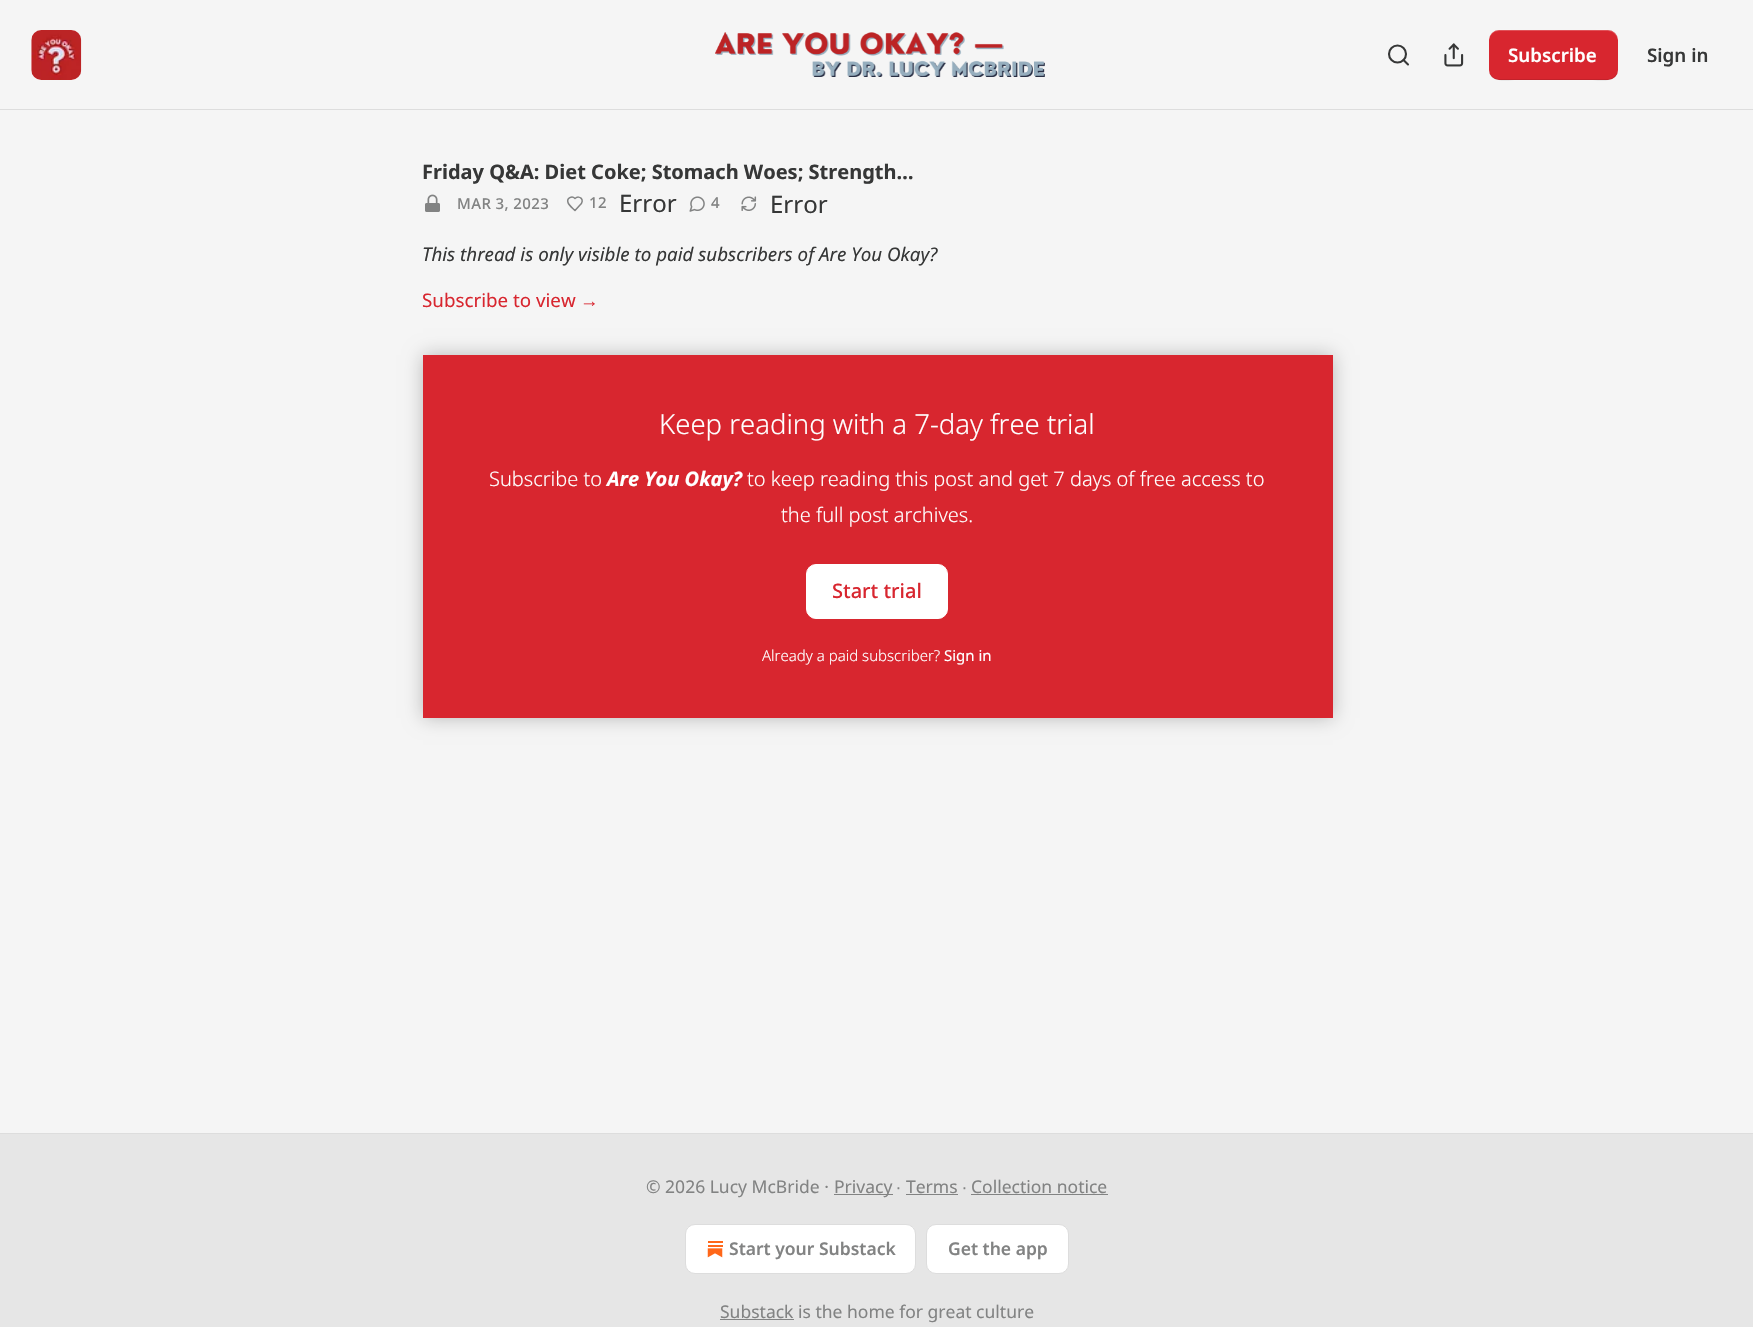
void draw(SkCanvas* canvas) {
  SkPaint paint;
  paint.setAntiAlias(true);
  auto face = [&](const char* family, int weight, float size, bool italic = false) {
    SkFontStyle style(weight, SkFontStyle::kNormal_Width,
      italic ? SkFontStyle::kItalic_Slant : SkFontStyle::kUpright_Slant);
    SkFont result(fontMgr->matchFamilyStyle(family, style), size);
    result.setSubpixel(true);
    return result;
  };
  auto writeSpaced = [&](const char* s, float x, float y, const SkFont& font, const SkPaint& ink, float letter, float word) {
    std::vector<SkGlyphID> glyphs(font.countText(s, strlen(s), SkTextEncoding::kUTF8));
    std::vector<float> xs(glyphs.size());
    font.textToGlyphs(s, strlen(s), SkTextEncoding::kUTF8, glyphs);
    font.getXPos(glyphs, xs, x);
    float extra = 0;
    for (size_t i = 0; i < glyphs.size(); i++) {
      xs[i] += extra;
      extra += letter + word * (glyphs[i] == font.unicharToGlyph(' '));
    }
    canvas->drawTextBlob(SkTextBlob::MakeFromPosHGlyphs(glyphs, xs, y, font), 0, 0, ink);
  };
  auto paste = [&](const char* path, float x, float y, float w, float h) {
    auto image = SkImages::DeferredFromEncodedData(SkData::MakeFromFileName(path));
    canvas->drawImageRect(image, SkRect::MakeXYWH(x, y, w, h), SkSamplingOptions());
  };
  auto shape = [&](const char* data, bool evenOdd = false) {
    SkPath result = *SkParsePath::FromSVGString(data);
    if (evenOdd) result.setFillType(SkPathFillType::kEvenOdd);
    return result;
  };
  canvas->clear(0xfff5f5f5);
  paint.setColor(0xffdddddd);
  canvas->drawRect(SkRect::MakeXYWH(0, 109, 1753, 1), paint);
  paint.setColor(0xffffffff);
  canvas->drawRoundRect(SkRect::MakeXYWH(31, 30, 50, 50), 10, 10, paint);
  paste("img/1.png", 31, 30, 51, 50);
  paste("img/2.png", 715, 32, 330, 45);
  paint.setStroke(true);
  paint.setStrokeWidth(2.1f);
  paint.setColor(0xff363737);
  canvas->drawCircle(1397.5f, 54, 8.5f, paint);
  paint.setStrokeCap(SkPaint::kRound_Cap);
  paint.setStrokeJoin(SkPaint::kRound_Join);
  canvas->drawPath(shape("M1408 64.5L1403.5 60"), paint);
  paste("img/3.png", 1444, 43, 20, 24);
  paint.setStroke(false);
  paint.setColor(0xffd8262f);
  canvas->drawRoundRect(SkRect::MakeXYWH(1489, 30, 129, 50), 10, 10, paint);
  paint.setColor(0x1a000000);
  canvas->drawPath(shape("M1489 69C1489 84 1507 80 1517 80H1590C1600 80 1618 84 1618 69C1618 74 1613 79 1608 79H1499C1493 79 1489 74 1489 69Z"), paint);
  paint.setColor(0x33ffffff);
  canvas->drawPath(shape("M1499 31H1608C1613 31 1618 36 1618 41C1618 26 1600 30 1590 30H1517C1507 30 1489 26 1489 41C1489 36 1493 31 1499 31Z"), paint);
  paste("img/4.png", 425, 194, 15, 18);
  paint.setStroke(true);
  paint.setStrokeWidth(1.5f);
  paint.setColor(0xff828383);
  canvas->drawPath(shape("M580 205C585.5 200 579.5 194.5 575 198.5C572 195.5 566.5 198 568 202.5C568.5 205 573 208.5 575 210.5Z"), paint);
  paste("img/5.png", 689, 196, 16, 16);
  paste("img/6.png", 741, 196, 16, 15);
  paint.setStroke(false);
  paint.setColor(0xffd8262f);
  canvas->drawRect(SkRect::MakeXYWH(423, 355, 910, 363), paint);
  paint.setColor(0xffffffff);
  canvas->drawRoundRect(SkRect::MakeXYWH(806.5f, 564.5f, 141, 54), 9.5f, 9.5f, paint);
  paint.setStroke(true);
  paint.setStrokeWidth(1);
  paint.setStrokeCap(SkPaint::kButt_Cap);
  paint.setStrokeJoin(SkPaint::kMiter_Join);
  canvas->drawRoundRect(SkRect::MakeXYWH(806.5f, 564.5f, 141, 54), 9.5f, 9.5f, paint);
  canvas->save();
  canvas->clipPath(shape("M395 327H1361V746H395ZM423 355H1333V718H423Z", true), true);
  paint.setStroke(false);
  paint.setColor(0x40000000);
  paint.setMaskFilter(SkMaskFilter::MakeBlur(kNormal_SkBlurStyle, 9));
  canvas->drawRect(SkRect::MakeXYWH(423, 355, 910, 363), paint);
  paint.setMaskFilter(nullptr);
  canvas->restore();
  {
    const struct { float x, y, w, h; SkColor color; } items[] = {
      {0, 1134, 1753, 193, 0xffe6e6e6},
      {0, 1133, 1753, 1, 0xffdddddd},
      {834, 1194, 59, 1, 0xff828383},
      {906, 1194, 52, 1, 0xff828383},
      {971, 1194, 137, 1, 0xff828383},
    };
    for (auto [x, y, w, h, color] : items) {
      paint.setColor(color);
      canvas->drawRect(SkRect::MakeXYWH(x, y, w, h), paint);
    }
  }
  paint.setColor(0xffffffff);
  canvas->drawRoundRect(SkRect::MakeXYWH(685.5f, 1224.5f, 230, 49), 9.5f, 9.5f, paint);
  paint.setStroke(true);
  paint.setColor(0xffdddddd);
  canvas->drawRoundRect(SkRect::MakeXYWH(685.5f, 1224.5f, 230, 49), 9.5f, 9.5f, paint);
  paste("img/7.png", 707, 1241, 16, 17);
  paint.setStroke(false);
  paint.setColor(0xffffffff);
  canvas->drawRoundRect(SkRect::MakeXYWH(926.5f, 1224.5f, 142, 49), 9.5f, 9.5f, paint);
  paint.setStroke(true);
  paint.setColor(0xffdddddd);
  canvas->drawRoundRect(SkRect::MakeXYWH(926.5f, 1224.5f, 142, 49), 9.5f, 9.5f, paint);
  paint.setStroke(false);
  paint.setColor(0xff828383);
  canvas->drawRect(SkRect::MakeXYWH(720, 1319, 74, 1), paint);
  auto f0 = face("Noto Sans", 600, 18.75f);
  paint.setColor(0xffffffff);
  canvas->drawString("Subscribe", 1508, 62, f0, paint);
  paint.setColor(0xff363737);
  canvas->drawString("Sign in", 1647, 62, f0, paint);
  auto f1 = face("Noto Sans", 700, 20);
  canvas->drawString("Friday Q&A: Diet Coke; Stomach Woes; Strength…", 422, 179, f1, paint);
  auto f2 = face("Noto Sans", 500, 15);
  paint.setColor(0xff828383);
  writeSpaced("MAR 3, 2023", 457, 209, f2, paint, 0.4f, 0);
  writeSpaced("12", 589, 208, f2, paint, 0.4f, 0);
  auto f3 = face("Noto Sans", 400, 24);
  paint.setColor(0xff363737);
  canvas->drawString("Error", 619, 212, f3, paint);
  paint.setColor(0xff828383);
  writeSpaced("4", 711, 208, f2, paint, 0.4f, 0);
  paint.setColor(0xff363737);
  canvas->drawString("Error", 770, 213, f3, paint);
  auto f4 = face("Noto Sans", 400, 18.75f, true);
  canvas->drawString("This thread is only visible to paid subscribers of Are You Okay?", 422, 261, f4, paint);
  auto f5 = face("Noto Sans", 400, 18.75f);
  paint.setColor(0xffd8262f);
  canvas->drawString("Subscribe to view", 422, 307, f5, paint);
  auto f6 = face("Liberation Sans", 400, 18.75f);
  canvas->drawString("→", 580, 307, f6, paint);
  auto f7 = face("Noto Sans", 300, 27.5f);
  paint.setColor(0xffffffff);
  canvas->drawString("Keep reading with a 7-day free trial", 659, 434, f7, paint);
  auto f8 = face("Noto Sans", 300, 20);
  canvas->drawString("Subscribe to", 489, 486, f8, paint);
  auto f9 = face("Noto Sans", 700, 20, true);
  canvas->drawString("Are You Okay?", 607, 486, f9, paint);
  canvas->drawString("to keep reading this post and get 7 days of free access to", 747, 486, f8, paint);
  canvas->drawString("the full post archives.", 781, 522, f8, paint);
  auto f10 = face("Noto Sans", 500, 20);
  paint.setColor(0xffd8262f);
  canvas->drawString("Start trial", 832, 598, f10, paint);
  auto f11 = face("Noto Sans", 300, 15);
  paint.setColor(0xffffffff);
  canvas->drawString("Already a paid subscriber?", 762, 661, f11, paint);
  auto f12 = face("Noto Sans", 400, 15);
  canvas->drawString("Sign in", 944, 661, f12, paint);
  auto f13 = face("Noto Sans", 400, 17.5f);
  paint.setColor(0xff828383);
  canvas->drawString("© 2026 Lucy McBride ·", 646, 1193, f13, paint);
  canvas->drawString("Privacy", 834, 1193, f13, paint);
  auto f14 = face("Liberation Sans", 400, 17.5f);
  canvas->drawString("∙", 896, 1193, f14, paint);
  canvas->drawString("Terms", 906, 1193, f13, paint);
  canvas->drawString("∙", 962, 1193, f14, paint);
  canvas->drawString("Collection notice", 971, 1193, f13, paint);
  auto f15 = face("Noto Sans", 600, 17.5f);
  canvas->drawString("Start your Substack", 729, 1255, f15, paint);
  canvas->drawString("Get the app", 948, 1255, f15, paint);
  canvas->drawString("Substack is the home for great culture", 720, 1318, f13, paint);
}
